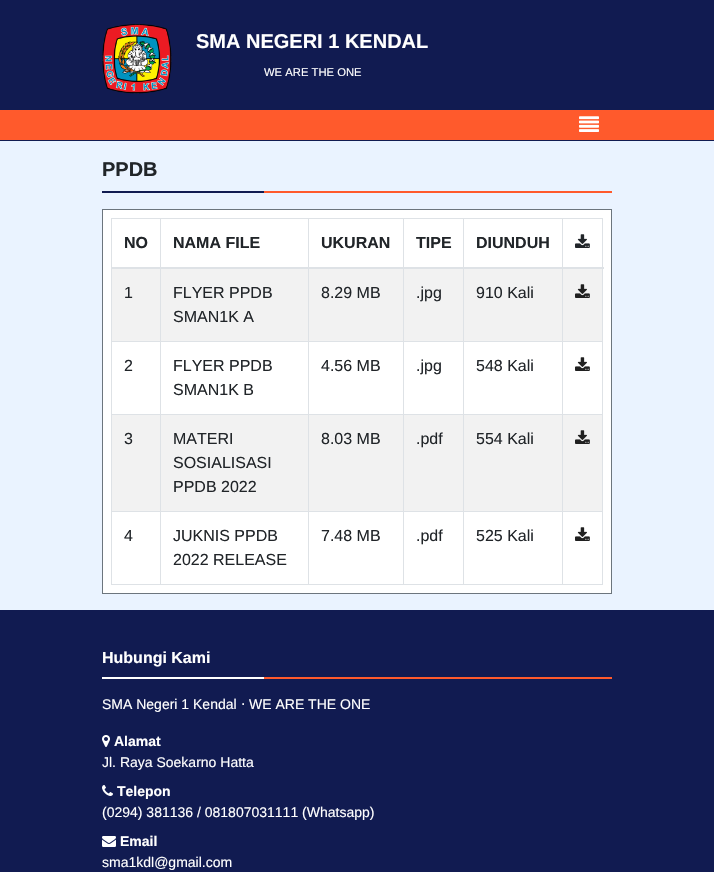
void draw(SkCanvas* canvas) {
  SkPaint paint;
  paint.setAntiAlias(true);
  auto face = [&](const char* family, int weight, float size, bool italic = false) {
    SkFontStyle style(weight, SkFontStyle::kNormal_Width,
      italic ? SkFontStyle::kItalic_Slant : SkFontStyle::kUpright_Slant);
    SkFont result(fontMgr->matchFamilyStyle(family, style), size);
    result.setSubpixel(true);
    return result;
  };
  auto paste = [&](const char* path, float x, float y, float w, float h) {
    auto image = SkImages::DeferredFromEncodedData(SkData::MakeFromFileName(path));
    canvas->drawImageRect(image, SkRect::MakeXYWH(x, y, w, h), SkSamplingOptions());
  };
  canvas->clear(0xffeaf3ff);
  paint.setColor(0xff111b51);
  canvas->drawRect(SkRect::MakeXYWH(0, 0, 714, 110), paint);
  paste("img/1.png", 102, 24, 70, 70);
  paint.setColor(0xffff5a2c);
  canvas->drawRect(SkRect::MakeXYWH(0, 110, 714, 30), paint);
  paint.setColor(0xff111b51);
  canvas->drawRect(SkRect::MakeXYWH(0, 140, 714, 1), paint);
  paste("img/2.png", 579, 116, 20, 16);
  paint.setColor(0xffff5a2c);
  canvas->drawRect(SkRect::MakeXYWH(264, 191, 348, 2), paint);
  paint.setColor(0xff111b51);
  canvas->drawRect(SkRect::MakeXYWH(102, 191, 162, 2), paint);
  paint.setColor(0xffffffff);
  canvas->drawRect(SkRect::MakeXYWH(102.5f, 209.5f, 509, 384), paint);
  paint.setStroke(true);
  paint.setStrokeWidth(1);
  paint.setColor(0xff6c757d);
  canvas->drawRect(SkRect::MakeXYWH(102.5f, 209.5f, 509, 384), paint);
  paint.setStroke(false);
  {
    const struct { float x, y, w, h; SkColor color; } items[] = {
      {111, 218, 492, 1, 0xffdee2e6},
      {602, 218, 1, 367, 0xffdee2e6},
      {111, 584, 492, 1, 0xffdee2e6},
      {111, 218, 1, 367, 0xffdee2e6},
      {112, 269, 490, 72, 0xfff2f2f2},
      {562, 341, 41, 1, 0xffdee2e6},
      {562, 414, 41, 1, 0xffdee2e6},
      {112, 415, 490, 96, 0xfff2f2f2},
      {562, 511, 41, 1, 0xffdee2e6},
      {562, 511, 1, 74, 0xffdee2e6},
      {463, 511, 100, 1, 0xffdee2e6},
      {562, 414, 1, 98, 0xffdee2e6},
      {463, 414, 100, 1, 0xffdee2e6},
      {562, 341, 1, 74, 0xffdee2e6},
      {463, 341, 100, 1, 0xffdee2e6},
      {463, 511, 1, 74, 0xffdee2e6},
      {403, 511, 61, 1, 0xffdee2e6},
      {463, 414, 1, 98, 0xffdee2e6},
      {403, 414, 61, 1, 0xffdee2e6},
      {463, 341, 1, 74, 0xffdee2e6},
      {403, 341, 61, 1, 0xffdee2e6},
      {403, 511, 1, 74, 0xffdee2e6},
      {308, 511, 96, 1, 0xffdee2e6},
      {403, 414, 1, 98, 0xffdee2e6},
      {308, 414, 96, 1, 0xffdee2e6},
      {403, 341, 1, 74, 0xffdee2e6},
      {308, 341, 96, 1, 0xffdee2e6},
      {308, 511, 1, 74, 0xffdee2e6},
      {160, 511, 149, 1, 0xffdee2e6},
      {308, 414, 1, 98, 0xffdee2e6},
      {160, 414, 149, 1, 0xffdee2e6},
      {308, 341, 1, 74, 0xffdee2e6},
      {160, 341, 149, 1, 0xffdee2e6},
      {160, 511, 1, 74, 0xffdee2e6},
      {111, 511, 50, 1, 0xffdee2e6},
      {160, 414, 1, 98, 0xffdee2e6},
      {111, 414, 50, 1, 0xffdee2e6},
      {160, 341, 1, 74, 0xffdee2e6},
      {111, 341, 50, 1, 0xffdee2e6},
      {160, 218, 1, 124, 0xffdee2e6},
      {308, 218, 1, 124, 0xffdee2e6},
      {403, 218, 1, 124, 0xffdee2e6},
      {463, 218, 1, 124, 0xffdee2e6},
      {562, 218, 1, 124, 0xffdee2e6},
      {111, 267, 493, 2, 0xffdee2e6},
    };
    for (auto [x, y, w, h, color] : items) {
      paint.setColor(color);
      canvas->drawRect(SkRect::MakeXYWH(x, y, w, h), paint);
    }
  }
  paste("img/3.png", 575, 234, 15, 14);
  paste("img/4.png", 575, 284, 15, 14);
  paste("img/5.png", 575, 357, 15, 14);
  paste("img/4.png", 575, 430, 15, 14);
  paste("img/5.png", 575, 527, 15, 14);
  {
    const struct { float x, y, w, h; SkColor color; } items[] = {
      {0, 610, 714, 262, 0xff111b51},
      {264, 677, 348, 2, 0xffff5a2c},
      {102, 677, 162, 2, 0xffffffff},
    };
    for (auto [x, y, w, h, color] : items) {
      paint.setColor(color);
      canvas->drawRect(SkRect::MakeXYWH(x, y, w, h), paint);
    }
  }
  paste("img/6.png", 102, 735, 8, 12);
  paste("img/7.png", 102, 785, 11, 11);
  paste("img/8.png", 102, 836, 14, 11);
  auto f0 = face("Liberation Sans", 700, 20);
  canvas->drawString("SMA NEGERI 1 KENDAL", 196, 48, f0, paint);
  auto f1 = face("Liberation Sans", 400, 11.25f);
  canvas->drawString("WE ARE THE ONE", 264, 76, f1, paint);
  paint.setColor(0xff212529);
  canvas->drawString("PPDB", 102, 176, f0, paint);
  auto f2 = face("Liberation Sans", 700, 16);
  {
    const struct { const char* s; float x, y; } items[] = {
      {"NO", 124, 248},
      {"NAMA FILE", 173, 248},
      {"UKURAN", 321, 248},
      {"TIPE", 416, 248},
      {"DIUNDUH", 476, 248},
    };
    for (auto [s, x, y] : items) {
      canvas->drawString(s, x, y, f2, paint);
    }
  }
  auto f3 = face("Liberation Sans", 400, 16);
  {
    const struct { const char* s; float x, y; } items[] = {
      {"1", 124, 298},
      {"FLYER PPDB", 173, 298},
      {"SMAN1K A", 173, 322},
      {"8.29 MB", 321, 298},
      {".jpg", 416, 298},
      {"910 Kali", 476, 298},
      {"2", 124, 371},
      {"FLYER PPDB", 173, 371},
      {"SMAN1K B", 173, 395},
      {"4.56 MB", 321, 371},
      {".jpg", 416, 371},
      {"548 Kali", 476, 371},
      {"3", 124, 444},
      {"MATERI", 173, 444},
      {"SOSIALISASI", 173, 468},
      {"PPDB 2022", 173, 492},
      {"8.03 MB", 321, 444},
      {".pdf", 416, 444},
      {"554 Kali", 476, 444},
      {"4", 124, 541},
      {"JUKNIS PPDB", 173, 541},
      {"2022 RELEASE", 173, 565},
      {"7.48 MB", 321, 541},
      {".pdf", 416, 541},
      {"525 Kali", 476, 541},
    };
    for (auto [s, x, y] : items) {
      canvas->drawString(s, x, y, f3, paint);
    }
  }
  paint.setColor(0xffffffff);
  canvas->drawString("Hubungi Kami", 102, 663, f2, paint);
  auto f4 = face("Liberation Sans", 400, 14);
  canvas->drawString("SMA Negeri 1 Kendal", 102, 709, f4, paint);
  auto f5 = face("DejaVu Sans", 400, 14);
  canvas->drawString("⋅", 241, 709, f5, paint);
  canvas->drawString("WE ARE THE ONE", 249, 709, f4, paint);
  auto f6 = face("Liberation Sans", 700, 14);
  canvas->drawString("Alamat", 114, 746, f6, paint);
  canvas->drawString("Jl. Raya Soekarno Hatta", 102, 767, f4, paint);
  canvas->drawString("Telepon", 117, 796, f6, paint);
  canvas->drawString("(0294) 381136 / 081807031111 (Whatsapp)", 102, 817, f4, paint);
  canvas->drawString("Email", 120, 846, f6, paint);
  canvas->drawString("sma1kdl@gmail.com", 102, 867, f4, paint);
}
